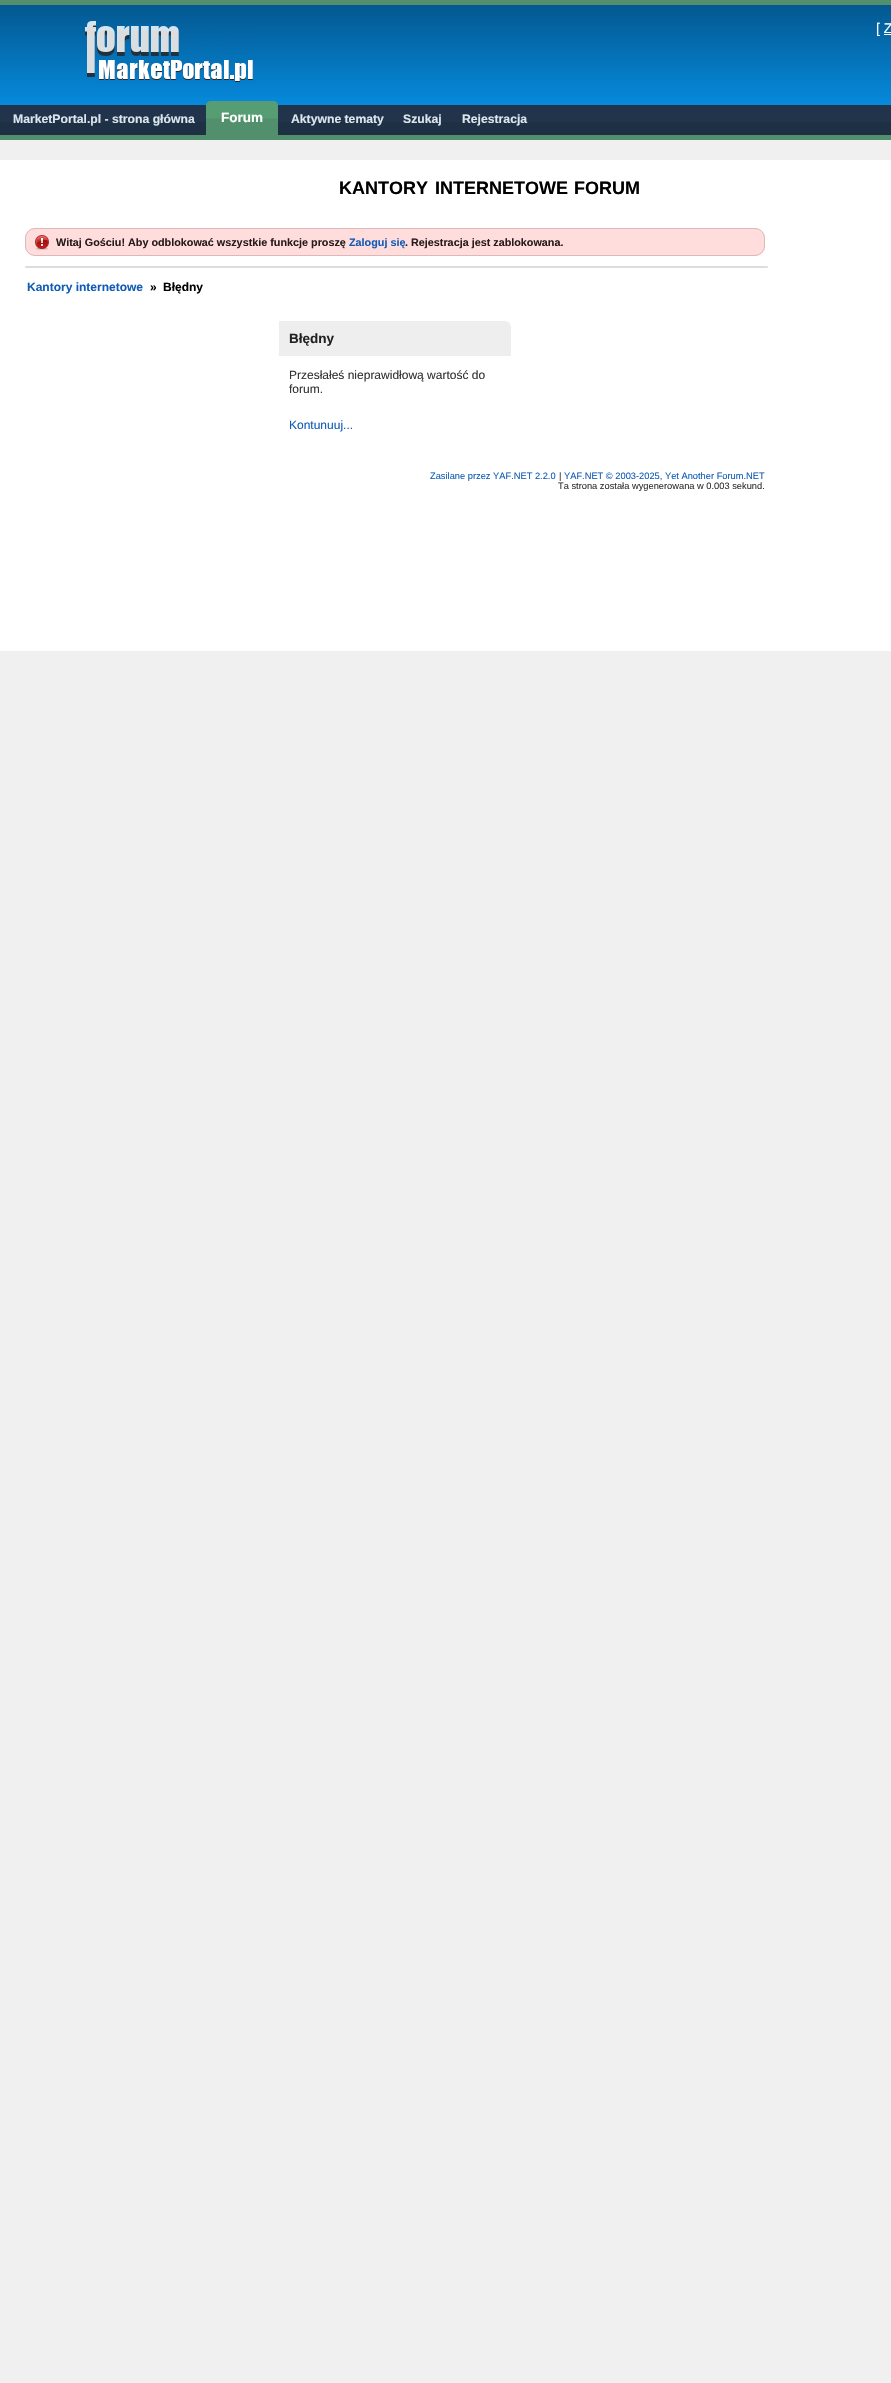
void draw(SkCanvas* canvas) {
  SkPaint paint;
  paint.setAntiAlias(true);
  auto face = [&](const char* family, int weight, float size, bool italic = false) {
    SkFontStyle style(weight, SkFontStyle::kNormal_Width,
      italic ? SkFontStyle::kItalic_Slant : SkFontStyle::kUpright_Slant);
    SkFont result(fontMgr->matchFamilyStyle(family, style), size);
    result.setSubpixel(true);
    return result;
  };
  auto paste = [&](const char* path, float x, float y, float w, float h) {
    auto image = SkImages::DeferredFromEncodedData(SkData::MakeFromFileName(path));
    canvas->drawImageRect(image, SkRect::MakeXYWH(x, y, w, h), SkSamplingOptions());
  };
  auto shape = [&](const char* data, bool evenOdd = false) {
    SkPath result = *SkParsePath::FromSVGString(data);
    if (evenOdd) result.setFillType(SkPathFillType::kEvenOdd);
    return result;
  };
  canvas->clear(0xfff0f0f0);
  paint.setColor(0xffffffff);
  canvas->drawRect(SkRect::MakeXYWH(0, 160, 891, 491), paint);
  paste("img/2.png", 0, 5, 891, 100);
  canvas->drawRect(SkRect::MakeXYWH(884, 34, 7, 1), paint);
  paint.setColor(0xffffdddd);
  canvas->drawRoundRect(SkRect::MakeXYWH(25, 228, 740, 28), 10, 10, paint);
  paste("img/1.png", 35, 235, 14, 15);
  paint.setStroke(true);
  paint.setStrokeWidth(1);
  paint.setColor(0xffdeb7b7);
  canvas->drawRoundRect(SkRect::MakeXYWH(25.5f, 228.5f, 739, 27), 9.5f, 9.5f, paint);
  paint.setStroke(false);
  paint.setColor(0xffdddddd);
  canvas->drawRoundRect(SkRect::MakeXYWH(25, 266, 743, 2), 1, 1, paint);
  paint.setColor(0xffeeeeee);
  canvas->drawPath(shape("M278.5 320.5H504C508 320.5 511.5 324 511.5 328V356.5H278.5Z"), paint);
  paint.setStroke(true);
  paint.setColor(0xffffffff);
  canvas->drawPath(shape("M278.5 320.5H504C508 320.5 511.5 324 511.5 328V356.5H278.5Z"), paint);
  paint.setStroke(false);
  paint.setColor(0xff528f6c);
  canvas->drawRect(SkRect::MakeXYWH(0, 0, 891, 5), paint);
  paste("img/3.png", 85, 21, 168, 61);
  {
    const struct { float x, y, w, h; SkColor color; } items[] = {
      {0, 105, 891, 17, 0xff22344b},
      {0, 122, 891, 13, 0xff1d3044},
      {0, 135, 891, 5, 0xff528f6c},
    };
    for (auto [x, y, w, h, color] : items) {
      paint.setColor(color);
      canvas->drawRect(SkRect::MakeXYWH(x, y, w, h), paint);
    }
  }
  paste("img/4.png", 206, 101, 6, 34);
  paste("img/5.png", 212, 101, 66, 34);
  auto f0 = face("Liberation Sans", 400, 14);
  paint.setColor(0xffffffff);
  canvas->drawString("[ Z", 876, 33, f0, paint);
  auto f1 = face("Liberation Sans", 700, 18);
  paint.setColor(0xff000000);
  {
    const struct { const char* s; float x, y; } items[] = {
      {"KANTORY", 339, 194},
      {"INTERNETOWE", 435, 194},
      {"FORUM", 574, 194},
    };
    for (auto [s, x, y] : items) {
      canvas->drawString(s, x, y, f1, paint);
    }
  }
  auto f2 = face("Liberation Sans", 700, 10.8f);
  paint.setColor(0xff281b1b);
  canvas->drawString("Witaj Gościu! Aby odblokować wszystkie funkcje proszę", 56, 246, f2, paint);
  paint.setColor(0xff105cb6);
  canvas->drawString("Zaloguj się", 349, 246, f2, paint);
  paint.setColor(0xff281b1b);
  canvas->drawString(". Rejestracja jest zablokowana.", 405, 246, f2, paint);
  auto f3 = face("Liberation Sans", 700, 12);
  paint.setColor(0xff105cb6);
  canvas->drawString("Kantory internetowe", 27, 291, f3, paint);
  paint.setColor(0xff000000);
  canvas->drawString("»", 150, 291, f3, paint);
  canvas->drawString("Błędny", 163, 291, f3, paint);
  auto f4 = face("Liberation Sans", 700, 13.5f);
  paint.setColor(0xff222222);
  canvas->drawString("Błędny", 289, 343, f4, paint);
  auto f5 = face("Liberation Sans", 400, 12);
  paint.setColor(0xff333333);
  canvas->drawString("Przesłałeś nieprawidłową wartość do", 289, 379, f5, paint);
  canvas->drawString("forum.", 289, 393, f5, paint);
  paint.setColor(0xff105cb6);
  canvas->drawString("Kontunuuj...", 289, 429, f5, paint);
  auto f6 = face("Liberation Sans", 400, 9.3f);
  canvas->drawString("Zasilane przez YAF.NET 2.2.0", 430, 479, f6, paint);
  paint.setColor(0xff333333);
  canvas->drawString("|", 559, 479, f6, paint);
  paint.setColor(0xff105cb6);
  canvas->drawString("YAF.NET © 2003-2025, Yet Another Forum.NET", 564, 479, f6, paint);
  paint.setColor(0xff333333);
  canvas->drawString("Ta strona została wygenerowana w 0.003 sekund.", 558, 489, f6, paint);
  auto f7 = face("Liberation Sans", 700, 12.2f);
  paint.setColor(0xffdce6ee);
  canvas->drawString("MarketPortal.pl - strona główna", 13, 123, f7, paint);
  paint.setColor(0xffffffff);
  canvas->drawString("Forum", 221, 122, f4, paint);
  paint.setColor(0xffdce6ee);
  {
    const struct { const char* s; float x, y; } items[] = {
      {"Aktywne tematy", 291, 123},
      {"Szukaj", 403, 123},
      {"Rejestracja", 462, 123},
    };
    for (auto [s, x, y] : items) {
      canvas->drawString(s, x, y, f7, paint);
    }
  }
}
